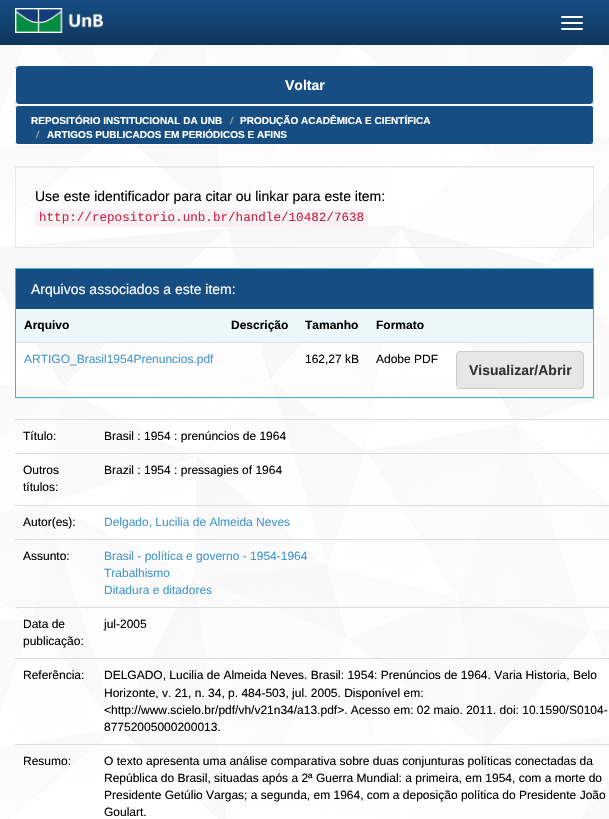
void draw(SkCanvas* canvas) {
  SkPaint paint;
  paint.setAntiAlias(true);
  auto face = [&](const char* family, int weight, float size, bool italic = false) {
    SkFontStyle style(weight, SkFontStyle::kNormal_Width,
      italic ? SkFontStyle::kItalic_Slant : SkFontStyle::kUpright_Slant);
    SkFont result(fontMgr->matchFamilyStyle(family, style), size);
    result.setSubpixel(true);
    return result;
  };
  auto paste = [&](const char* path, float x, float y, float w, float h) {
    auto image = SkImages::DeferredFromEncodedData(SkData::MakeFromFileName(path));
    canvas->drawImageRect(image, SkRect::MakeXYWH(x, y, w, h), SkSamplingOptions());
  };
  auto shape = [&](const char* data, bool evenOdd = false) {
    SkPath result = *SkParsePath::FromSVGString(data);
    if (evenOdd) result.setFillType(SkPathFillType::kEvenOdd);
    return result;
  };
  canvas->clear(0xffffffff);
  paste("img/1.png", 0, 45, 609, 774);
  {
    const SkColor colors[] = {0xff164d83, 0xff0f365c};
    const float stops[] = {0, 1};
    const SkPoint ends[] = {{305, 0}, {305, 45}};
    paint.setShader(SkGradientShader::MakeLinear(ends, colors, stops, 2, SkTileMode::kClamp));
    paint.setAlpha(255);
  }
  canvas->drawRect(SkRect::MakeXYWH(0, 0, 609, 45), paint);
  paste("img/2.png", 15, 8, 88, 25);
  paint.setShader(nullptr);
  paint.setColor(0xffffffff);
  canvas->drawRoundRect(SkRect::MakeXYWH(561, 16, 22, 2), 1, 1, paint);
  canvas->drawRoundRect(SkRect::MakeXYWH(561, 22, 22, 2), 1, 1, paint);
  canvas->drawRoundRect(SkRect::MakeXYWH(561, 28, 22, 2), 1, 1, paint);
  canvas->save();
  canvas->clipPath(shape("M19 65H590C592 65 594 67 594 69V101C594 103 592 105 590 105H19C17 105 15 103 15 101V69C15 67 17 65 19 65Z"), true);
  paint.setColor(0xff164d83);
  canvas->drawRect(SkRect::MakeXYWH(15, 66, 579, 38), paint);
  canvas->restore();
  paint.setStroke(true);
  paint.setStrokeWidth(1);
  paint.setColor(0xffffffff);
  canvas->drawRoundRect(SkRect::MakeXYWH(15.5f, 65.5f, 578, 39), 3.5f, 3.5f, paint);
  canvas->save();
  canvas->clipPath(shape("M18 105H591C592.5 105 594 106.5 594 108V142C594 143.5 592.5 145 591 145H18C16.5 145 15 143.5 15 142V108C15 106.5 16.5 105 18 105Z"), true);
  paint.setStroke(false);
  paint.setColor(0xff164d83);
  canvas->drawRect(SkRect::MakeXYWH(15, 106, 579, 38), paint);
  canvas->restore();
  paint.setStroke(true);
  paint.setColor(0xffffffff);
  canvas->drawRoundRect(SkRect::MakeXYWH(15.5f, 105.5f, 578, 39), 2.5f, 2.5f, paint);
  paint.setStroke(false);
  paint.setColor(0x0d000000);
  canvas->drawRect(SkRect::MakeXYWH(16, 167, 577, 1), paint);
  paint.setStroke(true);
  paint.setColor(0xffe8e8e8);
  canvas->drawRect(SkRect::MakeXYWH(15.5f, 166.5f, 578, 81), paint);
  paint.setStroke(false);
  paint.setColor(0xfff9f2f4);
  canvas->drawRoundRect(SkRect::MakeXYWH(35, 209, 333, 18), 4, 4, paint);
  canvas->save();
  canvas->clipRect(SkRect::MakeXYWH(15, 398, 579, 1));
  paint.setColor(0x0d000000);
  paint.setMaskFilter(SkMaskFilter::MakeBlur(kNormal_SkBlurStyle, 0.5f));
  canvas->drawRect(SkRect::MakeXYWH(15, 269, 579, 130), paint);
  paint.setMaskFilter(nullptr);
  canvas->restore();
  paint.setStroke(true);
  paint.setColor(0xff3db5d8);
  canvas->drawRect(SkRect::MakeXYWH(15.5f, 268.5f, 578, 129), paint);
  paint.setStroke(false);
  {
    const struct { float x, y, w, h; SkColor color; } items[] = {
      {16, 269, 577, 40, 0xff164d83},
      {16, 309, 577, 33, 0xffebf7fb},
      {16, 342, 578, 1, 0xffdddddd},
    };
    for (auto [x, y, w, h, color] : items) {
      paint.setColor(color);
      canvas->drawRect(SkRect::MakeXYWH(x, y, w, h), paint);
    }
  }
  paint.setColor(0xffe7e7e7);
  canvas->drawRoundRect(SkRect::MakeXYWH(456.5f, 351.5f, 127, 37), 3.5f, 3.5f, paint);
  paint.setStroke(true);
  paint.setColor(0xffcccccc);
  canvas->drawRoundRect(SkRect::MakeXYWH(456.5f, 351.5f, 127, 37), 3.5f, 3.5f, paint);
  paint.setStroke(false);
  {
    const struct { float x, y, w, h; SkColor color; } items[] = {
      {15, 419, 594, 1, 0xffdddddd},
      {15, 453, 594, 1, 0xffdddddd},
      {15, 505, 594, 1, 0xffdddddd},
      {15, 539, 594, 1, 0xffdddddd},
      {15, 607, 594, 1, 0xffdddddd},
      {15, 658, 594, 1, 0xffdddddd},
      {15, 744, 594, 1, 0xffdddddd},
    };
    for (auto [x, y, w, h, color] : items) {
      paint.setColor(color);
      canvas->drawRect(SkRect::MakeXYWH(x, y, w, h), paint);
    }
  }
  auto f0 = face("Liberation Sans", 700, 14);
  paint.setColor(0xffffffff);
  canvas->drawString("Voltar", 285, 90, f0, paint);
  auto f1 = face("Liberation Sans", 700, 10);
  canvas->drawString("REPOSITÓRIO INSTITUCIONAL DA UNB", 31, 124, f1, paint);
  auto f2 = face("Liberation Sans", 700, 10, true);
  paint.setColor(0xff999999);
  canvas->drawString("/", 230, 124, f2, paint);
  paint.setColor(0xffffffff);
  canvas->drawString("PRODUÇÃO ACADÊMICA E CIENTÍFICA", 240, 124, f1, paint);
  paint.setColor(0xff999999);
  canvas->drawString("/", 36, 138, f2, paint);
  paint.setColor(0xffffffff);
  canvas->drawString("ARTIGOS PUBLICADOS EM PERIÓDICOS E AFINS", 47, 138, f1, paint);
  auto f3 = face("Liberation Sans", 400, 14);
  paint.setColor(0xff000000);
  canvas->drawString("Use este identificador para citar ou linkar para este item:", 35, 201, f3, paint);
  auto f4 = face("Liberation Mono", 400, 12.6f);
  paint.setColor(0xffc7254e);
  canvas->drawString("http://repositorio.unb.br/handle/10482/7638", 39, 221, f4, paint);
  paint.setColor(0xffffffff);
  canvas->drawString("Arquivos associados a este item:", 31, 294, f3, paint);
  auto f5 = face("Liberation Sans", 700, 12);
  paint.setColor(0xff000000);
  {
    const struct { const char* s; float x, y; } items[] = {
      {"Arquivo", 24, 329},
      {"Descrição", 231, 329},
      {"Tamanho", 305, 329},
      {"Formato", 376, 329},
    };
    for (auto [s, x, y] : items) {
      canvas->drawString(s, x, y, f5, paint);
    }
  }
  auto f6 = face("Liberation Sans", 400, 12);
  paint.setColor(0xff4796cd);
  canvas->drawString("ARTIGO_Brasil1954Prenuncios.pdf", 24, 363, f6, paint);
  paint.setColor(0xff000000);
  canvas->drawString("162,27 kB", 305, 363, f6, paint);
  canvas->drawString("Adobe PDF", 376, 363, f6, paint);
  paint.setColor(0xff333333);
  canvas->drawString("Visualizar/Abrir", 469, 375, f0, paint);
  paint.setColor(0xff000000);
  {
    const struct { const char* s; float x, y; } items[] = {
      {"Título:", 23, 440},
      {"Brasil : 1954 : prenúncios de 1964", 104, 440},
      {"Outros", 23, 474},
      {"títulos:", 23, 491},
      {"Brazil : 1954 : pressagies of 1964", 104, 474},
      {"Autor(es):", 23, 526},
    };
    for (auto [s, x, y] : items) {
      canvas->drawString(s, x, y, f6, paint);
    }
  }
  paint.setColor(0xff4796cd);
  canvas->drawString("Delgado, Lucilia de Almeida Neves", 104, 526, f6, paint);
  paint.setColor(0xff000000);
  canvas->drawString("Assunto:", 23, 560, f6, paint);
  paint.setColor(0xff4796cd);
  {
    const struct { const char* s; float x, y; } items[] = {
      {"Brasil - política e governo - 1954-1964", 104, 560},
      {"Trabalhismo", 104, 577},
      {"Ditadura e ditadores", 104, 594},
    };
    for (auto [s, x, y] : items) {
      canvas->drawString(s, x, y, f6, paint);
    }
  }
  paint.setColor(0xff000000);
  {
    const struct { const char* s; float x, y; } items[] = {
      {"Data de", 23, 628},
      {"publicação:", 23, 645},
      {"jul-2005", 104, 628},
      {"Referência:", 23, 679},
      {"DELGADO, Lucilia de Almeida Neves. Brasil: 1954: Prenúncios de 1964. Varia Historia, Belo", 104, 679},
      {"Horizonte, v. 21, n. 34, p. 484-503, jul. 2005. Disponível em:", 104, 697},
      {"<http://www.scielo.br/pdf/vh/v21n34/a13.pdf>. Acesso em: 02 maio. 2011. doi: 10.1590/S0104-", 104, 714},
      {"87752005000200013.", 104, 731},
      {"Resumo:", 23, 765},
      {"O texto apresenta uma análise comparativa sobre duas conjunturas políticas conectadas da", 104, 765},
      {"República do Brasil, situadas após a 2ª Guerra Mundial: a primeira, em 1954, com a morte do", 104, 782},
      {"Presidente Getúlio Vargas; a segunda, em 1964, com a deposição política do Presidente João", 104, 799},
      {"Goulart.", 104, 816},
    };
    for (auto [s, x, y] : items) {
      canvas->drawString(s, x, y, f6, paint);
    }
  }
}
